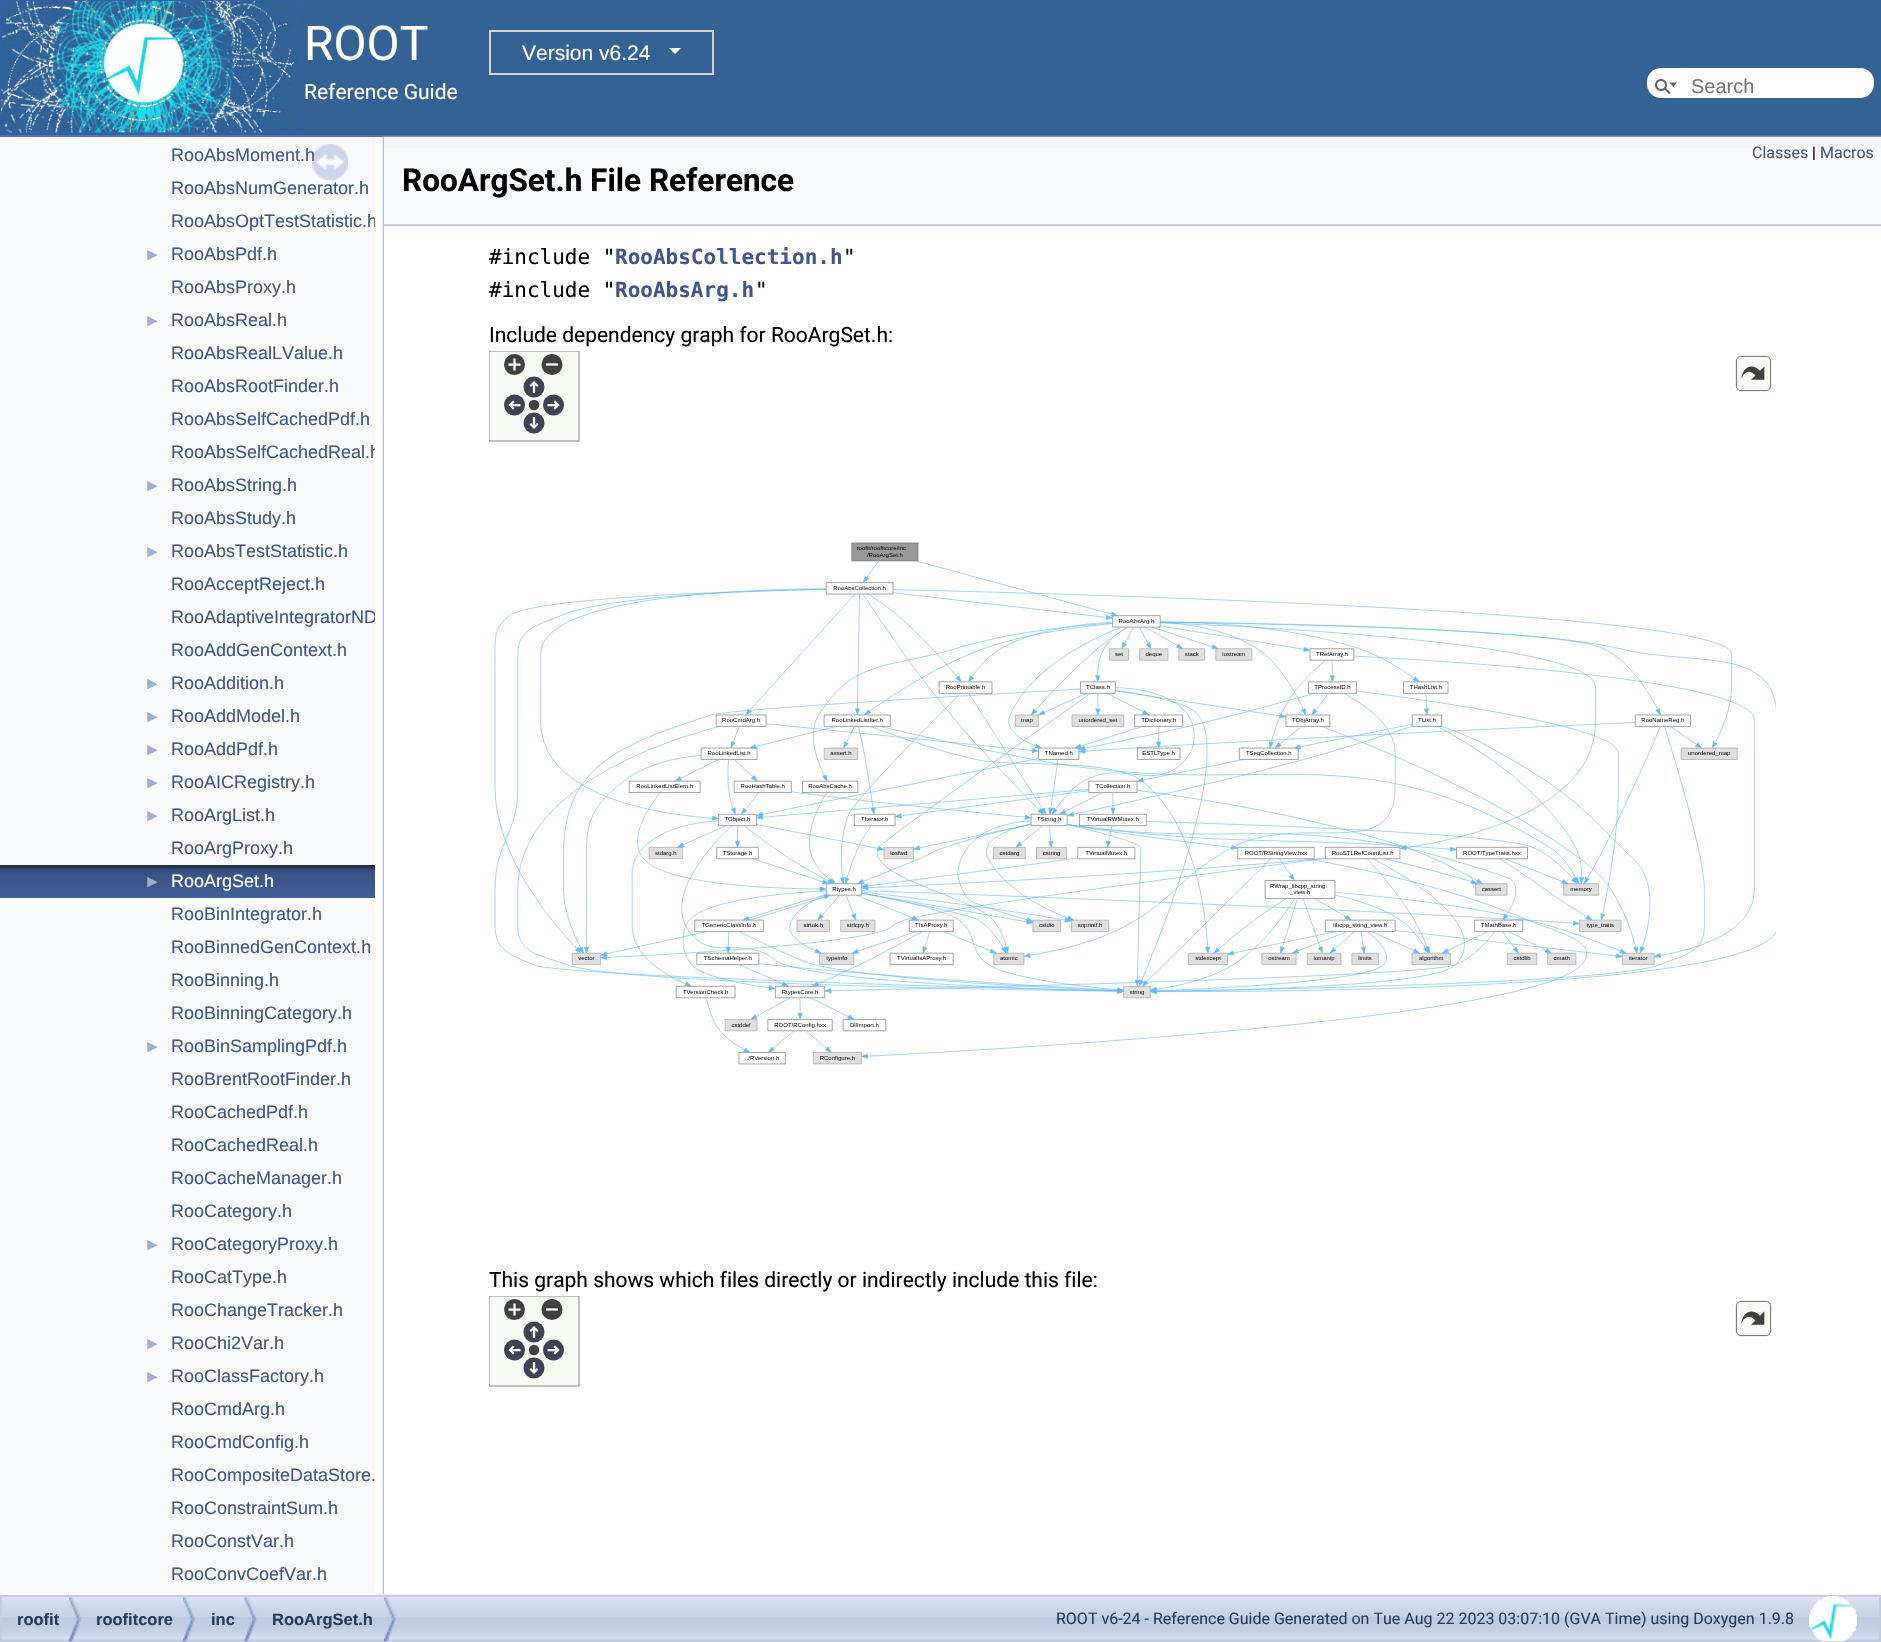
void draw(SkCanvas* canvas) {
  SkPaint paint;
  paint.setAntiAlias(true);
  auto face = [&](const char* family, int weight, float size, bool italic = false) {
    SkFontStyle style(weight, SkFontStyle::kNormal_Width,
      italic ? SkFontStyle::kItalic_Slant : SkFontStyle::kUpright_Slant);
    SkFont result(fontMgr->matchFamilyStyle(family, style), size);
    result.setSubpixel(true);
    return result;
  };
  auto paste = [&](const char* path, float x, float y, float w, float h) {
    auto image = SkImages::DeferredFromEncodedData(SkData::MakeFromFileName(path));
    canvas->drawImageRect(image, SkRect::MakeXYWH(x, y, w, h), SkSamplingOptions());
  };
  auto shape = [&](const char* data, bool evenOdd = false) {
    SkPath result = *SkParsePath::FromSVGString(data);
    if (evenOdd) result.setFillType(SkPathFillType::kEvenOdd);
    return result;
  };
  canvas->clear(0xffffffff);
  paint.setColor(0xff5373b4);
  canvas->drawRect(SkRect::MakeXYWH(0, 135, 1881, 2), paint);
  paint.setColor(0xff346295);
  canvas->drawRect(SkRect::MakeXYWH(304, 0, 1577, 135), paint);
  paste("img/1.png", 0, 0, 305, 135);
  paint.setStroke(true);
  paint.setStrokeWidth(2);
  paint.setColor(0xffd3d3d3);
  canvas->drawRect(SkRect::MakeXYWH(490, 31, 223, 43), paint);
  paint.setStroke(false);
  paint.setColor(0xffffffff);
  canvas->drawPath(shape("M669 48H681L675 54Z"), paint);
  canvas->drawRoundRect(SkRect::MakeXYWH(1647, 68, 227, 30), 14, 14, paint);
  paste("img/2.png", 1655, 79, 22, 15);
  paste("img/9.png", 2, 1594, 1879, 47);
  paint.setColor(0xfff9fafc);
  canvas->drawRect(SkRect::MakeXYWH(0, 137, 375, 1458), paint);
  paste("img/4.png", 0, 865, 375, 33);
  paste("img/5.png", 382, 136, 2, 1459);
  canvas->drawRect(SkRect::MakeXYWH(384, 148, 1497, 76), paint);
  paste("img/6.png", 384, 136, 1497, 12);
  paint.setColor(0xffc4cfe5);
  canvas->drawRect(SkRect::MakeXYWH(384, 224, 1497, 2), paint);
  paste("img/7.png", 489, 351, 1287, 714);
  paste("img/8.png", 489, 1296, 1283, 91);
  paint.setStroke(true);
  paint.setColor(0xffc2cde4);
  canvas->drawRect(SkRect::MakeXYWH(1, 1596, 1879, 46), paint);
  paste("img/10.png", 69, 1597, 12, 44);
  paste("img/10.png", 183, 1597, 12, 44);
  paste("img/11.png", 244, 1597, 13, 44);
  paste("img/12.png", 384, 1597, 12, 44);
  paste("img/13.png", 1809, 1596, 48, 45);
  auto f0 = face("Roboto", 400, 48);
  paint.setStroke(false);
  paint.setColor(0xffffffff);
  canvas->drawString("ROOT", 304, 60, f0, paint);
  auto f1 = face("Liberation Sans", 400, 21);
  canvas->drawString("Version v6.24", 522, 60, f1, paint);
  auto f2 = face("Roboto", 400, 21);
  canvas->drawString("Reference Guide", 304, 99, f2, paint);
  auto f3 = face("Liberation Sans", 400, 20);
  paint.setColor(0xff757575);
  canvas->drawString("Search", 1691, 93, f3, paint);
  auto f4 = face("Liberation Sans", 400, 18);
  paint.setColor(0xff3d578c);
  canvas->drawString("RooAbsMoment.h", 171, 161, f4, paint);
  paste("img/3.png", 312, 144, 36, 36);
  canvas->drawString("RooAbsNumGenerator.h", 171, 194, f4, paint);
  canvas->save();
  canvas->clipRect(SkRect::MakeXYWH(0, 137, 375, 1458));
  canvas->drawString("RooAbsOptTestStatistic.h", 171, 227, f4, paint);
  canvas->restore();
  auto f5 = face("Liberation Sans", 400, 17);
  paint.setColor(0xff9cafd4);
  canvas->drawString("►", 144, 260, f5, paint);
  paint.setColor(0xff3d578c);
  canvas->drawString("RooAbsPdf.h", 171, 260, f4, paint);
  canvas->drawString("RooAbsProxy.h", 171, 293, f4, paint);
  paint.setColor(0xff9cafd4);
  canvas->drawString("►", 144, 326, f5, paint);
  paint.setColor(0xff3d578c);
  {
    const struct { const char* s; float x, y; } items[] = {
      {"RooAbsReal.h", 171, 326},
      {"RooAbsRealLValue.h", 171, 359},
      {"RooAbsRootFinder.h", 171, 392},
      {"RooAbsSelfCachedPdf.h", 171, 425},
    };
    for (auto [s, x, y] : items) {
      canvas->drawString(s, x, y, f4, paint);
    }
  }
  canvas->save();
  canvas->clipRect(SkRect::MakeXYWH(0, 137, 375, 1458));
  canvas->drawString("RooAbsSelfCachedReal.h", 171, 458, f4, paint);
  canvas->restore();
  paint.setColor(0xff9cafd4);
  canvas->drawString("►", 144, 491, f5, paint);
  paint.setColor(0xff3d578c);
  canvas->drawString("RooAbsString.h", 171, 491, f4, paint);
  canvas->drawString("RooAbsStudy.h", 171, 524, f4, paint);
  paint.setColor(0xff9cafd4);
  canvas->drawString("►", 144, 557, f5, paint);
  paint.setColor(0xff3d578c);
  canvas->drawString("RooAbsTestStatistic.h", 171, 557, f4, paint);
  canvas->drawString("RooAcceptReject.h", 171, 590, f4, paint);
  canvas->save();
  canvas->clipRect(SkRect::MakeXYWH(0, 137, 375, 1458));
  canvas->drawString("RooAdaptiveIntegratorND", 171, 623, f4, paint);
  canvas->restore();
  canvas->drawString("RooAddGenContext.h", 171, 656, f4, paint);
  paint.setColor(0xff9cafd4);
  canvas->drawString("►", 144, 689, f5, paint);
  paint.setColor(0xff3d578c);
  canvas->drawString("RooAddition.h", 171, 689, f4, paint);
  paint.setColor(0xff9cafd4);
  canvas->drawString("►", 144, 722, f5, paint);
  paint.setColor(0xff3d578c);
  canvas->drawString("RooAddModel.h", 171, 722, f4, paint);
  paint.setColor(0xff9cafd4);
  canvas->drawString("►", 144, 755, f5, paint);
  paint.setColor(0xff3d578c);
  canvas->drawString("RooAddPdf.h", 171, 755, f4, paint);
  paint.setColor(0xff9cafd4);
  canvas->drawString("►", 144, 788, f5, paint);
  paint.setColor(0xff3d578c);
  canvas->drawString("RooAICRegistry.h", 171, 788, f4, paint);
  paint.setColor(0xff9cafd4);
  canvas->drawString("►", 144, 821, f5, paint);
  paint.setColor(0xff3d578c);
  canvas->drawString("RooArgList.h", 171, 821, f4, paint);
  canvas->drawString("RooArgProxy.h", 171, 854, f4, paint);
  paint.setColor(0xff9cafd4);
  canvas->drawString("►", 144, 887, f5, paint);
  paint.setColor(0xffffffff);
  canvas->drawString("RooArgSet.h", 171, 887, f4, paint);
  paint.setColor(0xff3d578c);
  {
    const struct { const char* s; float x, y; } items[] = {
      {"RooBinIntegrator.h", 171, 920},
      {"RooBinnedGenContext.h", 171, 953},
      {"RooBinning.h", 171, 986},
      {"RooBinningCategory.h", 171, 1019},
    };
    for (auto [s, x, y] : items) {
      canvas->drawString(s, x, y, f4, paint);
    }
  }
  paint.setColor(0xff9cafd4);
  canvas->drawString("►", 144, 1052, f5, paint);
  paint.setColor(0xff3d578c);
  {
    const struct { const char* s; float x, y; } items[] = {
      {"RooBinSamplingPdf.h", 171, 1052},
      {"RooBrentRootFinder.h", 171, 1085},
      {"RooCachedPdf.h", 171, 1118},
      {"RooCachedReal.h", 171, 1151},
      {"RooCacheManager.h", 171, 1184},
      {"RooCategory.h", 171, 1217},
    };
    for (auto [s, x, y] : items) {
      canvas->drawString(s, x, y, f4, paint);
    }
  }
  paint.setColor(0xff9cafd4);
  canvas->drawString("►", 144, 1250, f5, paint);
  paint.setColor(0xff3d578c);
  {
    const struct { const char* s; float x, y; } items[] = {
      {"RooCategoryProxy.h", 171, 1250},
      {"RooCatType.h", 171, 1283},
      {"RooChangeTracker.h", 171, 1316},
    };
    for (auto [s, x, y] : items) {
      canvas->drawString(s, x, y, f4, paint);
    }
  }
  paint.setColor(0xff9cafd4);
  canvas->drawString("►", 144, 1349, f5, paint);
  paint.setColor(0xff3d578c);
  canvas->drawString("RooChi2Var.h", 171, 1349, f4, paint);
  paint.setColor(0xff9cafd4);
  canvas->drawString("►", 144, 1382, f5, paint);
  paint.setColor(0xff3d578c);
  {
    const struct { const char* s; float x, y; } items[] = {
      {"RooClassFactory.h", 171, 1382},
      {"RooCmdArg.h", 171, 1415},
      {"RooCmdConfig.h", 171, 1448},
      {"RooCompositeDataStore.", 171, 1481},
      {"RooConstraintSum.h", 171, 1514},
      {"RooConstVar.h", 171, 1547},
      {"RooConvCoefVar.h", 171, 1580},
    };
    for (auto [s, x, y] : items) {
      canvas->drawString(s, x, y, f4, paint);
    }
  }
  auto f6 = face("Roboto", 400, 16);
  canvas->drawString("Classes", 1752, 158, f6, paint);
  paint.setColor(0xff000000);
  canvas->drawString("|", 1812, 158, f6, paint);
  paint.setColor(0xff3d578c);
  canvas->drawString("Macros", 1820, 158, f6, paint);
  auto f7 = face("Roboto", 700, 31.5f);
  paint.setColor(0xff000000);
  canvas->drawString("RooArgSet.h File Reference", 402, 191, f7, paint);
  auto f8 = face("DejaVu Sans Mono", 400, 21);
  canvas->drawString("#include \"", 489, 264, f8, paint);
  auto f9 = face("DejaVu Sans Mono", 700, 21);
  paint.setColor(0xff3d578c);
  canvas->drawString("RooAbsCollection.h", 615, 264, f9, paint);
  paint.setColor(0xff000000);
  canvas->drawString("\"", 843, 264, f8, paint);
  canvas->drawString("#include \"", 489, 297, f8, paint);
  paint.setColor(0xff3d578c);
  canvas->drawString("RooAbsArg.h", 615, 297, f9, paint);
  paint.setColor(0xff000000);
  canvas->drawString("\"", 755, 297, f8, paint);
  canvas->drawString("Include dependency graph for RooArgSet.h:", 489, 342, f2, paint);
  canvas->drawString("This graph shows which files directly or indirectly include this file:", 489, 1287, f2, paint);
  auto f10 = face("Liberation Sans", 700, 16.5f);
  paint.setColor(0xff283a5d);
  {
    const struct { const char* s; float x, y; } items[] = {
      {"roofit", 17, 1625},
      {"roofitcore", 96, 1625},
      {"inc", 211, 1625},
      {"RooArgSet.h", 272, 1625},
    };
    for (auto [s, x, y] : items) {
      canvas->drawString(s, x, y, f10, paint);
    }
  }
  canvas->drawString("ROOT v6-24 - Reference Guide Generated on Tue Aug 22 2023 03:07:10 (GVA Time) using Doxygen 1.9.8", 1056, 1624, f6, paint);
}
